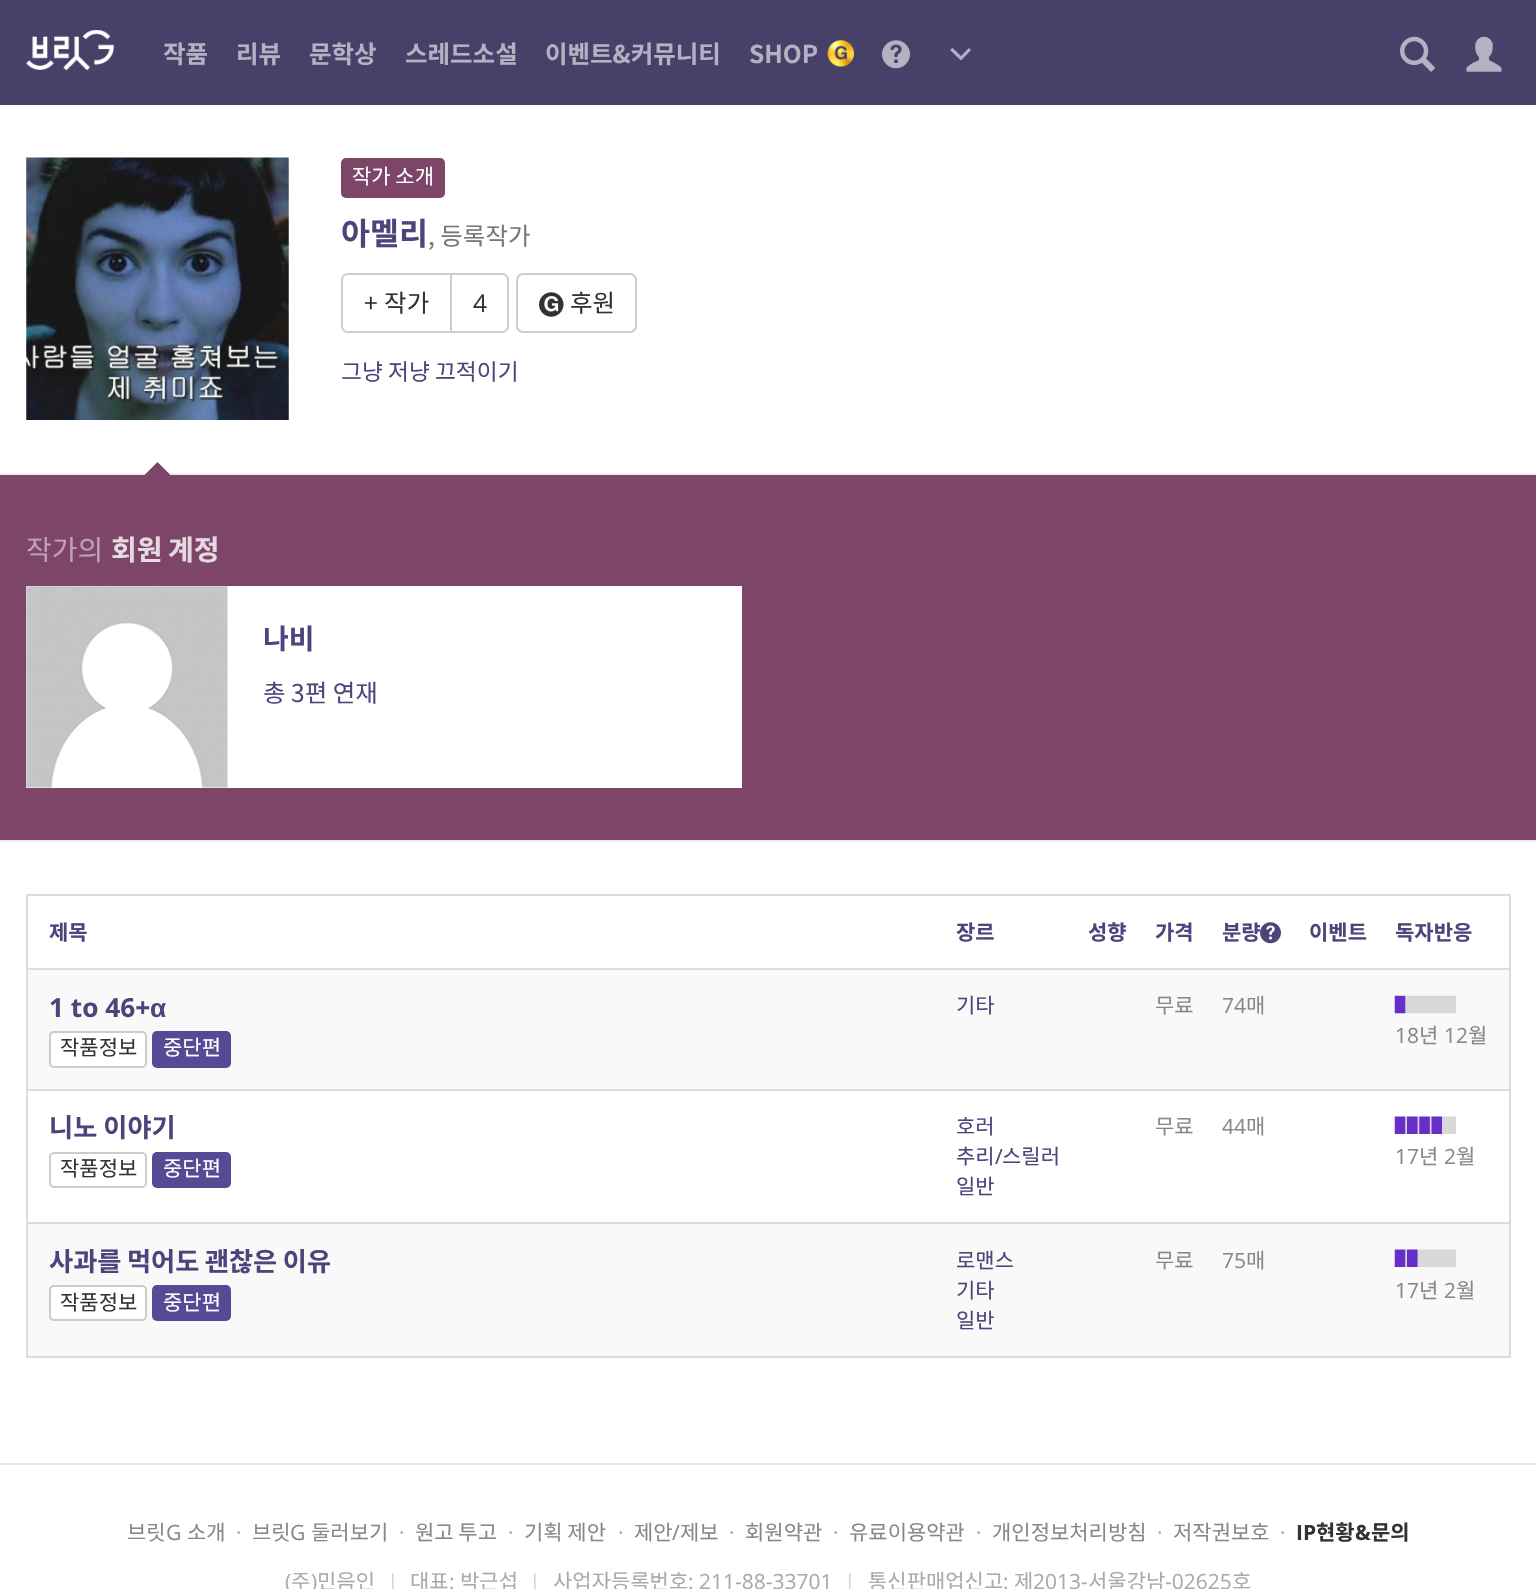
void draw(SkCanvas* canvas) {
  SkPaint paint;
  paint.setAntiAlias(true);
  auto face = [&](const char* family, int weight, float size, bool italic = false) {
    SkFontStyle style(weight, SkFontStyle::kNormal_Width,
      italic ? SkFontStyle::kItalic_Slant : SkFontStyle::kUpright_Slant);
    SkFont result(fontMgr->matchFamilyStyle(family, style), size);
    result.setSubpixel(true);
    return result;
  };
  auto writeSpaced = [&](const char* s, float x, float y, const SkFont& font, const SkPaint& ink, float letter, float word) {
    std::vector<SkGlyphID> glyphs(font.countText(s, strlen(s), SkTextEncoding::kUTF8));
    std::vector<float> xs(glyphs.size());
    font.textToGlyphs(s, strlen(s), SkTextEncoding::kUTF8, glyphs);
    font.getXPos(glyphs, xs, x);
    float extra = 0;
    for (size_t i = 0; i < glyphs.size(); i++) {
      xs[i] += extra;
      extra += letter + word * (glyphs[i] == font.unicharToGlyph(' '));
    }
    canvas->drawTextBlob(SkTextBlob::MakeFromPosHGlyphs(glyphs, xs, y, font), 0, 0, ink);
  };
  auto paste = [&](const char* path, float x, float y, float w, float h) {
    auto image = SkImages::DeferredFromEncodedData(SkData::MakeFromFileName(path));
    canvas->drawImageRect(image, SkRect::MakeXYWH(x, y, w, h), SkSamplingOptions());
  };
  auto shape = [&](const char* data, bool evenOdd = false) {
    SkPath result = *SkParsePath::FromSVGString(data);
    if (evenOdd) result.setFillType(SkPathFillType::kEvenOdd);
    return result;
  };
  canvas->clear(0xffffffff);
  paint.setColor(0xff474069);
  canvas->drawRect(SkRect::MakeXYWH(0, 0, 1536, 105), paint);
  paste("img/1.png", 26, 30, 88, 41);
  paste("img/2.png", 827, 40, 27, 27);
  paste("img/3.png", 882, 40, 28, 29);
  paint.setColor(0xffb4b1c2);
  canvas->drawPath(shape("M961 56L952.5 48L950 50L961 60.5L971 50L969 48Z"), paint);
  paste("img/4.png", 1400, 36, 35, 36);
  paste("img/5.png", 1466, 36, 36, 36);
  paste("img/6.png", 26, 157, 263, 263);
  paint.setColor(0xff7d4669);
  canvas->drawRoundRect(SkRect::MakeXYWH(341, 158, 104, 40), 5, 5, paint);
  paint.setStroke(true);
  paint.setStrokeWidth(2);
  paint.setColor(0xffcccccc);
  canvas->drawPath(shape("M348 274H451V332H348C344.5 332 342 329.5 342 326V280C342 276.5 344.5 274 348 274Z"), paint);
  paint.setStroke(false);
  paint.setColor(0xffffffff);
  canvas->drawPath(shape("M451 274H502C505.5 274 508 276.5 508 280V326C508 329.5 505.5 332 502 332H451Z"), paint);
  paint.setStroke(true);
  paint.setColor(0xffcccccc);
  canvas->drawPath(shape("M451 274H502C505.5 274 508 276.5 508 280V326C508 329.5 505.5 332 502 332H451Z"), paint);
  canvas->drawRoundRect(SkRect::MakeXYWH(517, 274, 119, 58), 6, 6, paint);
  paste("img/7.png", 539, 292, 25, 25);
  paint.setStroke(false);
  paint.setColor(0xff7d4669);
  canvas->drawRect(SkRect::MakeXYWH(0, 475, 1536, 365), paint);
  paint.setColor(0xffededed);
  canvas->drawRect(SkRect::MakeXYWH(0, 473, 1536, 2), paint);
  paint.setColor(0xff7d4669);
  canvas->drawPath(shape("M171.5 476H143.5L157.5 462Z"), paint);
  paint.setColor(0xffffffff);
  canvas->drawRect(SkRect::MakeXYWH(26, 586, 716, 202), paint);
  paste("img/8.png", 26, 586, 202, 202);
  {
    const struct { float x, y, w, h; SkColor color; } items[] = {
      {0, 840, 1536, 2, 0xffededed},
      {26, 894, 1484, 2, 0xffdddddd},
      {1509, 894, 2, 464, 0xffdddddd},
      {26, 1356, 1484, 2, 0xffdddddd},
      {26, 894, 2, 464, 0xffdddddd},
    };
    for (auto [x, y, w, h, color] : items) {
      paint.setColor(color);
      canvas->drawRect(SkRect::MakeXYWH(x, y, w, h), paint);
    }
  }
  paste("img/9.png", 1260, 922, 21, 22);
  paint.setColor(0xfff9f9f9);
  canvas->drawRect(SkRect::MakeXYWH(28, 970, 1481, 119), paint);
  paint.setColor(0xffffffff);
  canvas->drawRoundRect(SkRect::MakeXYWH(50, 1032, 96, 35), 4, 4, paint);
  paint.setStroke(true);
  paint.setColor(0xffcccccc);
  canvas->drawRoundRect(SkRect::MakeXYWH(50, 1032, 96, 35), 4, 4, paint);
  paint.setStroke(false);
  paint.setColor(0xff574994);
  canvas->drawRoundRect(SkRect::MakeXYWH(152, 1031, 79, 37), 5, 5, paint);
  paint.setColor(0xffdddddd);
  canvas->drawRect(SkRect::MakeXYWH(26, 968, 1484, 2), paint);
  paste("img/10.png", 1394, 995, 62, 19);
  paint.setStroke(true);
  paint.setColor(0xffcccccc);
  canvas->drawRoundRect(SkRect::MakeXYWH(50, 1153, 96, 34), 4, 4, paint);
  paint.setStroke(false);
  paint.setColor(0xff574994);
  canvas->drawRoundRect(SkRect::MakeXYWH(152, 1152, 79, 36), 5, 5, paint);
  paint.setColor(0xffdddddd);
  canvas->drawRect(SkRect::MakeXYWH(26, 1089, 1484, 2), paint);
  paste("img/11.png", 1394, 1116, 62, 18);
  paint.setColor(0xfff9f9f9);
  canvas->drawRect(SkRect::MakeXYWH(28, 1224, 1481, 132), paint);
  paint.setColor(0xffffffff);
  canvas->drawRoundRect(SkRect::MakeXYWH(50, 1286, 96, 34), 4, 4, paint);
  paint.setStroke(true);
  paint.setColor(0xffcccccc);
  canvas->drawRoundRect(SkRect::MakeXYWH(50, 1286, 96, 34), 4, 4, paint);
  paint.setStroke(false);
  paint.setColor(0xff574994);
  canvas->drawRoundRect(SkRect::MakeXYWH(152, 1285, 79, 36), 5, 5, paint);
  paint.setColor(0xffdddddd);
  canvas->drawRect(SkRect::MakeXYWH(26, 1222, 1484, 2), paint);
  paste("img/12.png", 1394, 1249, 62, 18);
  paint.setColor(0xffe6e6e6);
  canvas->drawRect(SkRect::MakeXYWH(0, 1463, 1536, 2), paint);
  auto f0 = face("Noto Sans KR", 700, 24.5f);
  paint.setColor(0xffb4b1c2);
  {
    const struct { const char* s; float x, y; } items[] = {
      {"작품", 163, 63},
      {"리뷰", 236, 63},
      {"문학상", 309, 63},
      {"스레드소설", 405, 63},
      {"이벤트&커뮤니티", 545, 63},
      {"SHOP", 749, 63},
    };
    for (auto [s, x, y] : items) {
      canvas->drawString(s, x, y, f0, paint);
    }
  }
  auto f1 = face("Noto Sans KR", 400, 21);
  paint.setColor(0xffffffff);
  canvas->drawString("작가 소개", 352, 184, f1, paint);
  auto f2 = face("Noto Sans KR", 700, 31.5f);
  paint.setColor(0xff4e447b);
  canvas->drawString("아멜리", 341, 245, f2, paint);
  auto f3 = face("Noto Sans KR", 400, 24.5f);
  paint.setColor(0xff777777);
  canvas->drawString(", 등록작가", 428, 245, f3, paint);
  paint.setColor(0xff333333);
  writeSpaced("+ 작가", 364, 312, f3, paint, 0, 1);
  auto f4 = face("Open Sans", 400, 24.5f);
  canvas->drawString("4", 473, 312, f4, paint);
  canvas->drawString("후원", 570, 312, f3, paint);
  auto f5 = face("Noto Sans KR", 400, 22.75f);
  paint.setColor(0xff4e447b);
  canvas->drawString("그냥 저냥 끄적이기", 341, 380, f5, paint);
  auto f6 = face("Noto Sans KR", 400, 28);
  paint.setColor(0xffbea3b4);
  canvas->drawString("작가의", 26, 560, f6, paint);
  auto f7 = face("Noto Sans KR", 700, 28);
  paint.setColor(0xffe5dae1);
  writeSpaced("회원 계정", 111, 560, f7, paint, 0, -1);
  paint.setColor(0xff4e447b);
  canvas->drawString("나비", 263, 649, f7, paint);
  canvas->drawString("총 3편 연재", 263, 702, f3, paint);
  auto f8 = face("Noto Sans KR", 700, 21);
  {
    const struct { const char* s; float x, y; } items[] = {
      {"제목", 49, 940},
      {"장르", 956, 940},
      {"성향", 1088, 940},
      {"가격", 1155, 940},
      {"분량", 1222, 940},
      {"이벤트", 1309, 940},
      {"독자반응", 1395, 940},
    };
    for (auto [s, x, y] : items) {
      canvas->drawString(s, x, y, f8, paint);
    }
  }
  auto f9 = face("Open Sans", 700, 26.25f);
  canvas->drawString("1 to 46+", 49, 1017, f9, paint);
  auto f10 = face("Liberation Sans", 700, 26.25f);
  canvas->drawString("α", 150, 1017, f10, paint);
  paint.setColor(0xff333333);
  canvas->drawString("작품정보", 60, 1055, f1, paint);
  paint.setColor(0xffffffff);
  canvas->drawString("중단편", 163, 1055, f1, paint);
  paint.setColor(0xff4e447b);
  canvas->drawString("기타", 956, 1013, f1, paint);
  paint.setColor(0xff888888);
  canvas->drawString("무료", 1155, 1013, f1, paint);
  auto f11 = face("Open Sans", 400, 21);
  canvas->drawString("74", 1222, 1013, f11, paint);
  canvas->drawString("매", 1246, 1013, f1, paint);
  canvas->drawString("18", 1395, 1043, f11, paint);
  canvas->drawString("년", 1419, 1043, f1, paint);
  canvas->drawString("12", 1444, 1043, f11, paint);
  canvas->drawString("월", 1468, 1043, f1, paint);
  auto f12 = face("Noto Sans KR", 700, 26.25f);
  paint.setColor(0xff4e447b);
  canvas->drawString("니노 이야기", 49, 1137, f12, paint);
  paint.setColor(0xff333333);
  canvas->drawString("작품정보", 60, 1176, f1, paint);
  paint.setColor(0xffffffff);
  canvas->drawString("중단편", 163, 1176, f1, paint);
  paint.setColor(0xff4e447b);
  canvas->drawString("호러", 956, 1134, f1, paint);
  canvas->drawString("추리", 956, 1164, f1, paint);
  canvas->drawString("/", 995, 1164, f11, paint);
  canvas->drawString("스릴러", 1002, 1164, f1, paint);
  canvas->drawString("일반", 956, 1194, f1, paint);
  paint.setColor(0xff888888);
  canvas->drawString("무료", 1155, 1134, f1, paint);
  canvas->drawString("44", 1222, 1134, f11, paint);
  canvas->drawString("매", 1246, 1134, f1, paint);
  canvas->drawString("17", 1395, 1164, f11, paint);
  canvas->drawString("년", 1419, 1164, f1, paint);
  canvas->drawString("2", 1444, 1164, f11, paint);
  canvas->drawString("월", 1456, 1164, f1, paint);
  paint.setColor(0xff4e447b);
  writeSpaced("사과를 먹어도 괜찮은 이유", 49, 1271, f12, paint, 0, -0.5f);
  paint.setColor(0xff333333);
  canvas->drawString("작품정보", 60, 1310, f1, paint);
  paint.setColor(0xffffffff);
  canvas->drawString("중단편", 163, 1310, f1, paint);
  paint.setColor(0xff4e447b);
  {
    const struct { const char* s; float x, y; } items[] = {
      {"로맨스", 956, 1268},
      {"기타", 956, 1298},
      {"일반", 956, 1328},
    };
    for (auto [s, x, y] : items) {
      canvas->drawString(s, x, y, f1, paint);
    }
  }
  paint.setColor(0xff888888);
  canvas->drawString("무료", 1155, 1268, f1, paint);
  canvas->drawString("75", 1222, 1268, f11, paint);
  canvas->drawString("매", 1246, 1268, f1, paint);
  canvas->drawString("17", 1395, 1298, f11, paint);
  canvas->drawString("년", 1419, 1298, f1, paint);
  canvas->drawString("2", 1444, 1298, f11, paint);
  canvas->drawString("월", 1456, 1298, f1, paint);
  canvas->drawString("브릿", 127, 1540, f1, paint);
  canvas->drawString("G", 166, 1540, f11, paint);
  canvas->drawString("소개", 187, 1540, f1, paint);
  paint.setColor(0xffaaaaaa);
  canvas->drawString("·", 236, 1540, f11, paint);
  paint.setColor(0xff888888);
  canvas->drawString("브릿", 252, 1540, f1, paint);
  canvas->drawString("G", 290, 1540, f11, paint);
  canvas->drawString("둘러보기", 311, 1540, f1, paint);
  paint.setColor(0xffaaaaaa);
  canvas->drawString("·", 399, 1540, f11, paint);
  paint.setColor(0xff888888);
  canvas->drawString("원고 투고", 415, 1540, f1, paint);
  paint.setColor(0xffaaaaaa);
  canvas->drawString("·", 508, 1540, f11, paint);
  paint.setColor(0xff888888);
  canvas->drawString("기획 제안", 524, 1540, f1, paint);
  paint.setColor(0xffaaaaaa);
  canvas->drawString("·", 618, 1540, f11, paint);
  paint.setColor(0xff888888);
  canvas->drawString("제안", 634, 1540, f1, paint);
  canvas->drawString("/", 672, 1540, f11, paint);
  canvas->drawString("제보", 680, 1540, f1, paint);
  paint.setColor(0xffaaaaaa);
  canvas->drawString("·", 729, 1540, f11, paint);
  paint.setColor(0xff888888);
  canvas->drawString("회원약관", 745, 1540, f1, paint);
  paint.setColor(0xffaaaaaa);
  canvas->drawString("·", 833, 1540, f11, paint);
  paint.setColor(0xff888888);
  canvas->drawString("유료이용약관", 849, 1540, f1, paint);
  paint.setColor(0xffaaaaaa);
  canvas->drawString("·", 976, 1540, f11, paint);
  paint.setColor(0xff888888);
  canvas->drawString("개인정보처리방침", 992, 1540, f1, paint);
  paint.setColor(0xffaaaaaa);
  canvas->drawString("·", 1157, 1540, f11, paint);
  paint.setColor(0xff888888);
  canvas->drawString("저작권보호", 1173, 1540, f1, paint);
  paint.setColor(0xffaaaaaa);
  canvas->drawString("·", 1280, 1540, f11, paint);
  auto f13 = face("Open Sans", 700, 21);
  paint.setColor(0xff333333);
  canvas->drawString("IP", 1296, 1540, f13, paint);
  canvas->drawString("현황", 1316, 1540, f8, paint);
  canvas->drawString("&", 1355, 1540, f13, paint);
  canvas->drawString("문의", 1371, 1540, f8, paint);
  paint.setColor(0xffaaaaaa);
  canvas->drawString("(", 285, 1589, f11, paint);
  canvas->drawString("주", 291, 1589, f1, paint);
  canvas->drawString(")", 311, 1589, f11, paint);
  canvas->drawString("민음인", 317, 1589, f1, paint);
  paint.setColor(0xffd5d5d5);
  canvas->drawString("|", 387, 1589, f11, paint);
  paint.setColor(0xffaaaaaa);
  canvas->drawString("대표", 410, 1589, f1, paint);
  canvas->drawString(":", 449, 1589, f11, paint);
  canvas->drawString("박근섭", 460, 1589, f1, paint);
  paint.setColor(0xffd5d5d5);
  canvas->drawString("|", 529, 1589, f11, paint);
  paint.setColor(0xffaaaaaa);
  canvas->drawString("사업자등록번호", 553, 1589, f1, paint);
  canvas->drawString(": 211-88-33701", 688, 1589, f11, paint);
  paint.setColor(0xffd5d5d5);
  canvas->drawString("|", 844, 1589, f11, paint);
  paint.setColor(0xffaaaaaa);
  canvas->drawString("통신판매업신고", 868, 1589, f1, paint);
  canvas->drawString(":", 1003, 1589, f11, paint);
  canvas->drawString("제", 1014, 1589, f1, paint);
  canvas->drawString("2013-", 1033, 1589, f11, paint);
  canvas->drawString("서울강남", 1088, 1589, f1, paint);
  canvas->drawString("-02625", 1165, 1589, f11, paint);
  canvas->drawString("호", 1232, 1589, f1, paint);
}
